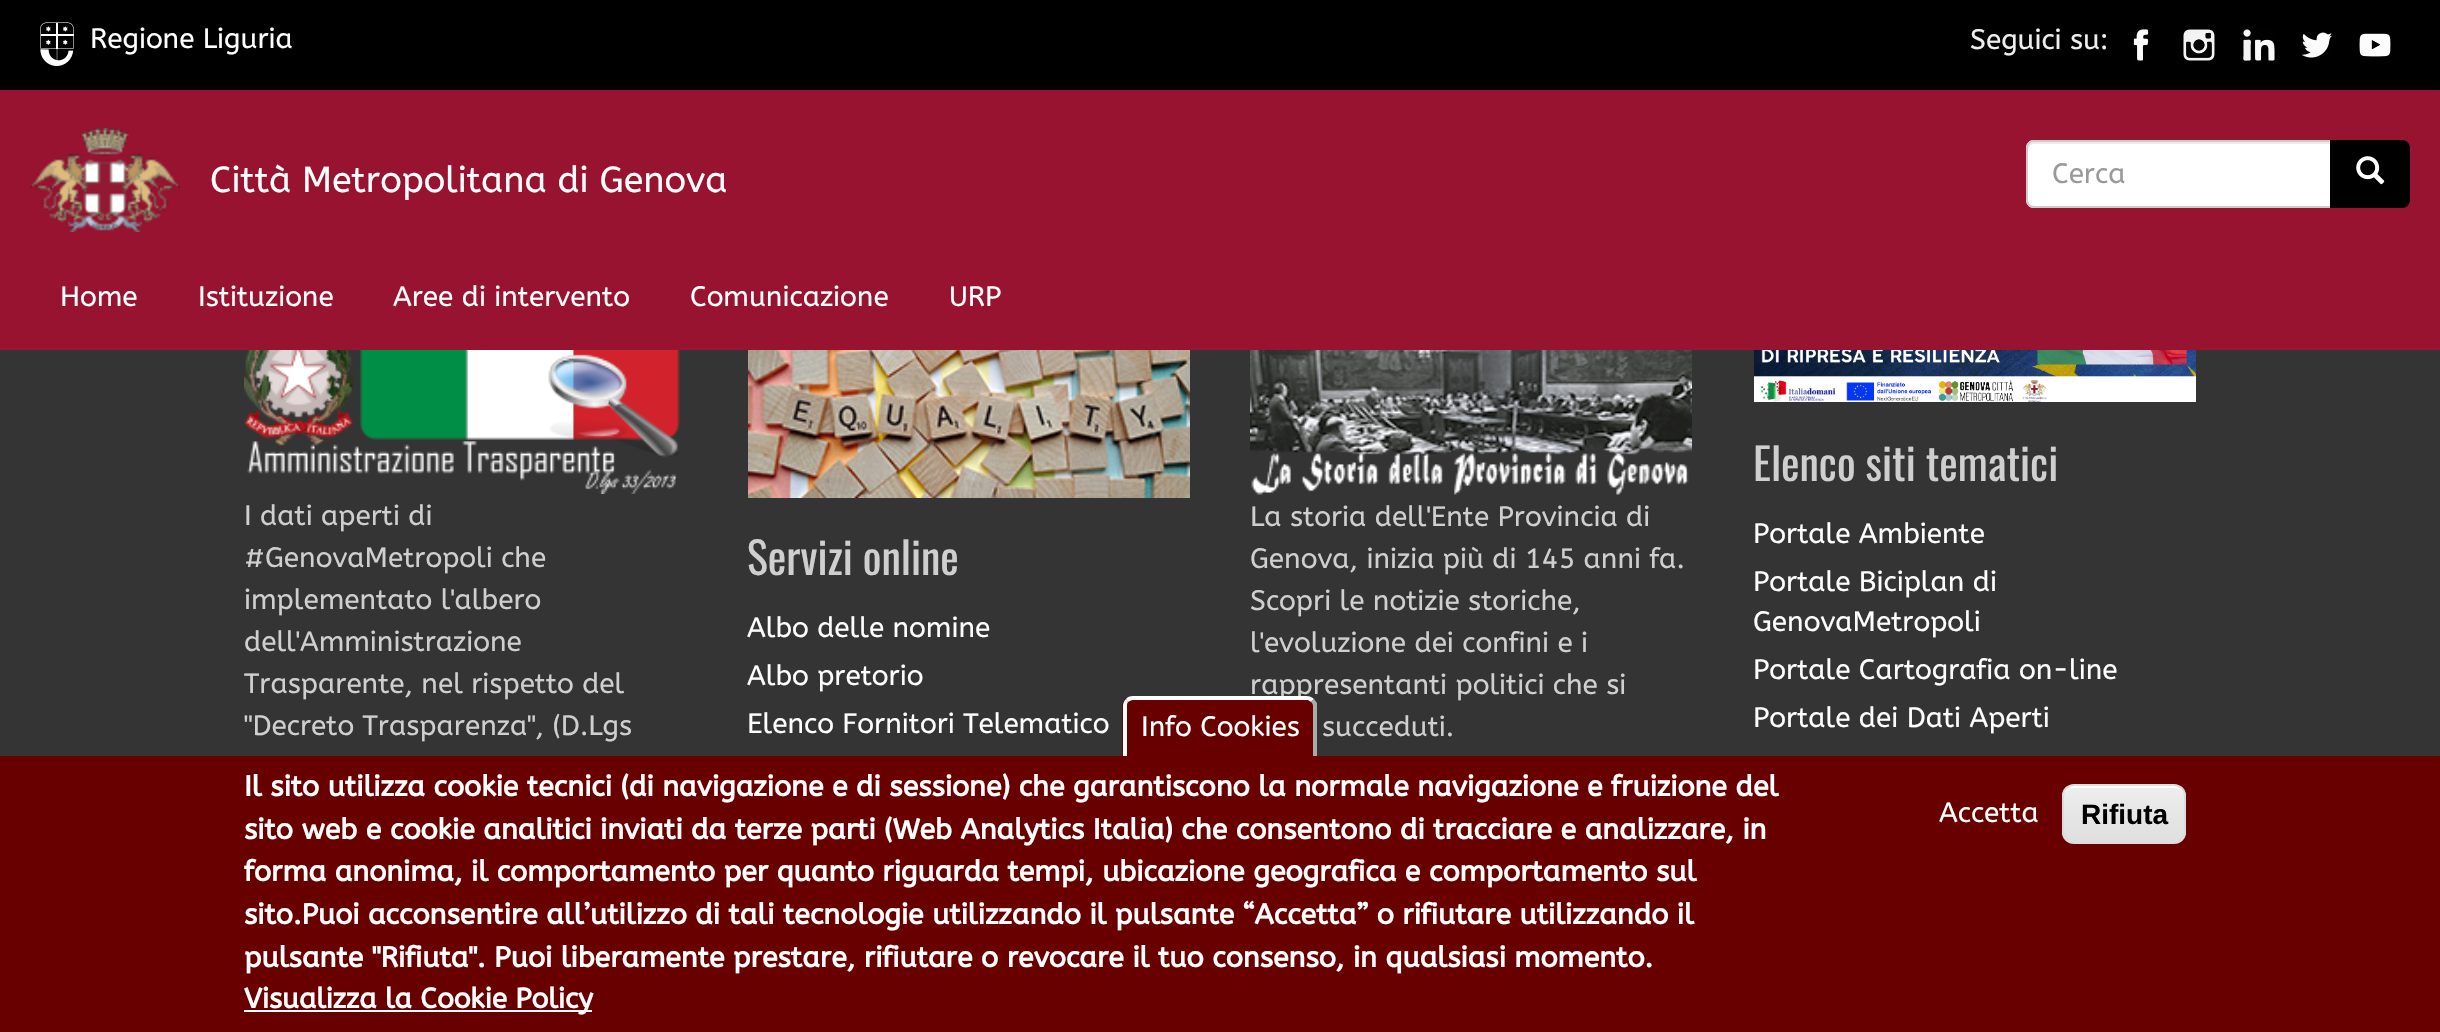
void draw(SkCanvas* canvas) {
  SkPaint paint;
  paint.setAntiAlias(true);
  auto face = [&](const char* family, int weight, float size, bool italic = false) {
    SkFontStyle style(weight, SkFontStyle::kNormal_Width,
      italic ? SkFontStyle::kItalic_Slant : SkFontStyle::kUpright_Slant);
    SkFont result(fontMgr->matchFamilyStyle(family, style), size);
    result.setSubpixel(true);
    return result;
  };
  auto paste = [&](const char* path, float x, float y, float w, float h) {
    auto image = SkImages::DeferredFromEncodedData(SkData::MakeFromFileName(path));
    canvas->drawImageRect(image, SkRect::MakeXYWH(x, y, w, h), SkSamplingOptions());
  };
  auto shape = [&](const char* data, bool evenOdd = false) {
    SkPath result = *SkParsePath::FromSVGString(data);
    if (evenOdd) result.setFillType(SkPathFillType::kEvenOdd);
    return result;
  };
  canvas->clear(0xff343434);
  paint.setColor(0xff97132f);
  canvas->drawRect(SkRect::MakeXYWH(0, 90, 2440, 260), paint);
  paint.setColor(0xff000000);
  canvas->drawRect(SkRect::MakeXYWH(0, 0, 2440, 90), paint);
  paste("img/1.png", 40, 22, 34, 44);
  paste("img/2.png", 2133, 29, 16, 32);
  paste("img/3.png", 2183, 29, 32, 32);
  paste("img/4.png", 2243, 29, 32, 32);
  paste("img/5.png", 2301, 32, 32, 26);
  paste("img/6.png", 2359, 33, 32, 24);
  paste("img/7.png", 30, 128, 150, 104);
  paint.setColor(0xffffffff);
  canvas->drawPath(shape("M2034 140H2332V208H2034C2029.5 208 2026 204.5 2026 200V148C2026 143.5 2029.5 140 2034 140Z"), paint);
  paint.setColor(0xffececec);
  canvas->drawPath(shape("M2034 144H2330V142H2033C2029 143 2028 147 2028 150C2028 147 2031 144 2034 144Z"), paint);
  paint.setStroke(true);
  paint.setStrokeWidth(2);
  paint.setColor(0xffcccccc);
  canvas->drawPath(shape("M2034 141H2331V207H2034C2030 207 2027 204 2027 200V148C2027 144 2030 141 2034 141Z"), paint);
  paint.setStroke(false);
  paint.setColor(0xff000000);
  canvas->drawPath(shape("M2331 141H2402C2406 141 2409 144 2409 148V200C2409 204 2406 207 2402 207H2331Z"), paint);
  paint.setStroke(true);
  canvas->drawPath(shape("M2331 141H2402C2406 141 2409 144 2409 148V200C2409 204 2406 207 2402 207H2331Z"), paint);
  paste("img/8.png", 2356, 156, 29, 29);
  paste("img/9.png", 244, 350, 436, 144);
  paste("img/10.png", 748, 350, 442, 148);
  paste("img/11.png", 1250, 350, 442, 145);
  paste("img/12.png", 1754, 350, 442, 52);
  paint.setStroke(false);
  paint.setColor(0xff690000);
  canvas->drawRect(SkRect::MakeXYWH(0, 756, 2440, 276), paint);
  paint.setColor(0xffffffff);
  canvas->drawRect(SkRect::MakeXYWH(244, 1010, 348, 2), paint);
  canvas->save();
  canvas->clipPath(shape("M2074 784H2174C2180.5 784 2186 789.5 2186 796V832C2186 838.5 2180.5 844 2174 844H2074C2067.5 844 2062 838.5 2062 832V796C2062 789.5 2067.5 784 2074 784Z"), true);
  {
    const SkColor colors[] = {0xffededed, 0xffdfdfdf};
    const float stops[] = {0.05f, 1};
    const SkPoint ends[] = {{2124, 786}, {2124, 842}};
    paint.setShader(SkGradientShader::MakeLinear(ends, colors, stops, 2, SkTileMode::kClamp));
    paint.setAlpha(255);
  }
  canvas->drawRect(SkRect::MakeXYWH(2062, 786, 124, 56), paint);
  canvas->restore();
  paint.setShader(nullptr);
  paint.setColor(0xffffffff);
  canvas->drawPath(shape("M2074 788H2174C2180 788 2184 792 2184 798C2184 782 2169 786 2157 786H2091C2079 786 2064 782 2064 798C2064 792 2068 788 2074 788Z"), paint);
  paint.setStroke(true);
  paint.setColor(0xffdcdcdc);
  canvas->drawRoundRect(SkRect::MakeXYWH(2063, 785, 122, 58), 11, 11, paint);
  auto f0 = face("abeezee", 400, 28);
  paint.setStroke(false);
  paint.setColor(0xffffffff);
  canvas->drawString("Regione Liguria", 90, 48, f0, paint);
  paint.setColor(0xffeeeeee);
  canvas->drawString("Seguici su:", 1970, 49, f0, paint);
  auto f1 = face("abeezee", 400, 36);
  paint.setColor(0xffffffff);
  canvas->drawString("Città Metropolitana di Genova", 210, 192, f1, paint);
  paint.setColor(0xff999999);
  canvas->drawString("Cerca", 2052, 183, f0, paint);
  paint.setColor(0xffffffff);
  {
    const struct { const char* s; float x, y; } items[] = {
      {"Home", 60, 306},
      {"Istituzione", 198, 306},
      {"Aree di intervento", 393, 306},
      {"Comunicazione", 690, 306},
      {"URP", 949, 306},
    };
    for (auto [s, x, y] : items) {
      canvas->drawString(s, x, y, f0, paint);
    }
  }
  paint.setColor(0xffcfcfcf);
  {
    const struct { const char* s; float x, y; } items[] = {
      {"I dati aperti di", 244, 525},
      {"#GenovaMetropoli che", 244, 567},
      {"implementato l'albero", 244, 609},
      {"dell'Amministrazione", 244, 651},
      {"Trasparente, nel rispetto del", 244, 693},
      {"\"Decreto Trasparenza\", (D.Lgs", 244, 735},
    };
    for (auto [s, x, y] : items) {
      canvas->drawString(s, x, y, f0, paint);
    }
  }
  auto f2 = face("Oswald", 400, 44);
  canvas->drawString("Servizi online", 747, 575, f2, paint);
  paint.setColor(0xffffffff);
  {
    const struct { const char* s; float x, y; } items[] = {
      {"Albo delle nomine", 747, 637},
      {"Albo pretorio", 747, 685},
      {"Elenco Fornitori Telematico", 747, 733},
    };
    for (auto [s, x, y] : items) {
      canvas->drawString(s, x, y, f0, paint);
    }
  }
  paint.setColor(0xffcfcfcf);
  {
    const struct { const char* s; float x, y; } items[] = {
      {"La storia dell'Ente Provincia di", 1250, 526},
      {"Genova, inizia più di 145 anni fa.", 1250, 568},
      {"Scopri le notizie storiche,", 1250, 610},
      {"l'evoluzione dei confini e i", 1250, 652},
      {"rappresentanti politici che si", 1250, 694},
      {"succeduti.", 1322, 736},
    };
    for (auto [s, x, y] : items) {
      canvas->drawString(s, x, y, f0, paint);
    }
  }
  canvas->drawString("Elenco siti tematici", 1753, 481, f2, paint);
  paint.setColor(0xffffffff);
  {
    const struct { const char* s; float x, y; } items[] = {
      {"Portale Ambiente", 1753, 543},
      {"Portale Biciplan di", 1753, 591},
      {"GenovaMetropoli", 1753, 631},
      {"Portale Cartografia on-line", 1753, 679},
      {"Portale dei Dati Aperti", 1753, 727},
    };
    for (auto [s, x, y] : items) {
      canvas->drawString(s, x, y, f0, paint);
    }
  }
  paint.setColor(0xff690000);
  canvas->drawPath(shape("M1132 696H1306C1311.5 696 1316 700.5 1316 706V756H1122V706C1122 700.5 1126.5 696 1132 696Z"), paint);
  paint.setColor(0xffffffff);
  canvas->drawPath(shape("M1133 696H1307C1309 696 1312 697 1314 699L1311 702L1308 700H1133C1131 700 1130 701 1128 702L1126 699C1127 697 1130 696 1133 696Z"), paint);
  paint.setColor(0xffaaaaaa);
  canvas->drawPath(shape("M1311 702L1314 699L1317 703V756H1313V706C1313 704 1312 703 1311 702Z"), paint);
  paint.setColor(0xffffffff);
  canvas->drawPath(shape("M1123 756H1127V706C1127 705 1127 703 1128 702L1126 699C1124 701 1123 703 1123 706Z"), paint);
  canvas->drawString("Info Cookies", 1141, 736, f0, paint);
  auto f3 = face("abeezee", 700, 28.55f);
  {
    const struct { const char* s; float x, y; } items[] = {
      {"Il sito utilizza cookie tecnici (di navigazione e di sessione) che garantiscono la normale navigazione e fruizione del", 244, 796},
      {"sito web e cookie analitici inviati da terze parti (Web Analytics Italia) che consentono di tracciare e analizzare, in", 244, 839},
      {"forma anonima, il comportamento per quanto riguarda tempi, ubicazione geografica e comportamento sul", 244, 881},
      {"sito.Puoi acconsentire all’utilizzo di tali tecnologie utilizzando il pulsante “Accetta” o rifiutare utilizzando il", 244, 924},
      {"pulsante \"Rifiuta\". Puoi liberamente prestare, rifiutare o revocare il tuo consenso, in qualsiasi momento.", 244, 967},
    };
    for (auto [s, x, y] : items) {
      canvas->drawString(s, x, y, f3, paint);
    }
  }
  auto f4 = face("abeezee", 700, 28);
  canvas->drawString("Visualizza la Cookie Policy", 244, 1008, f4, paint);
  canvas->drawString("Accetta", 1939, 822, f0, paint);
  auto f5 = face("Liberation Sans", 700, 28);
  paint.setColor(0xff000000);
  canvas->drawString("Rifiuta", 2081, 824, f5, paint);
}
